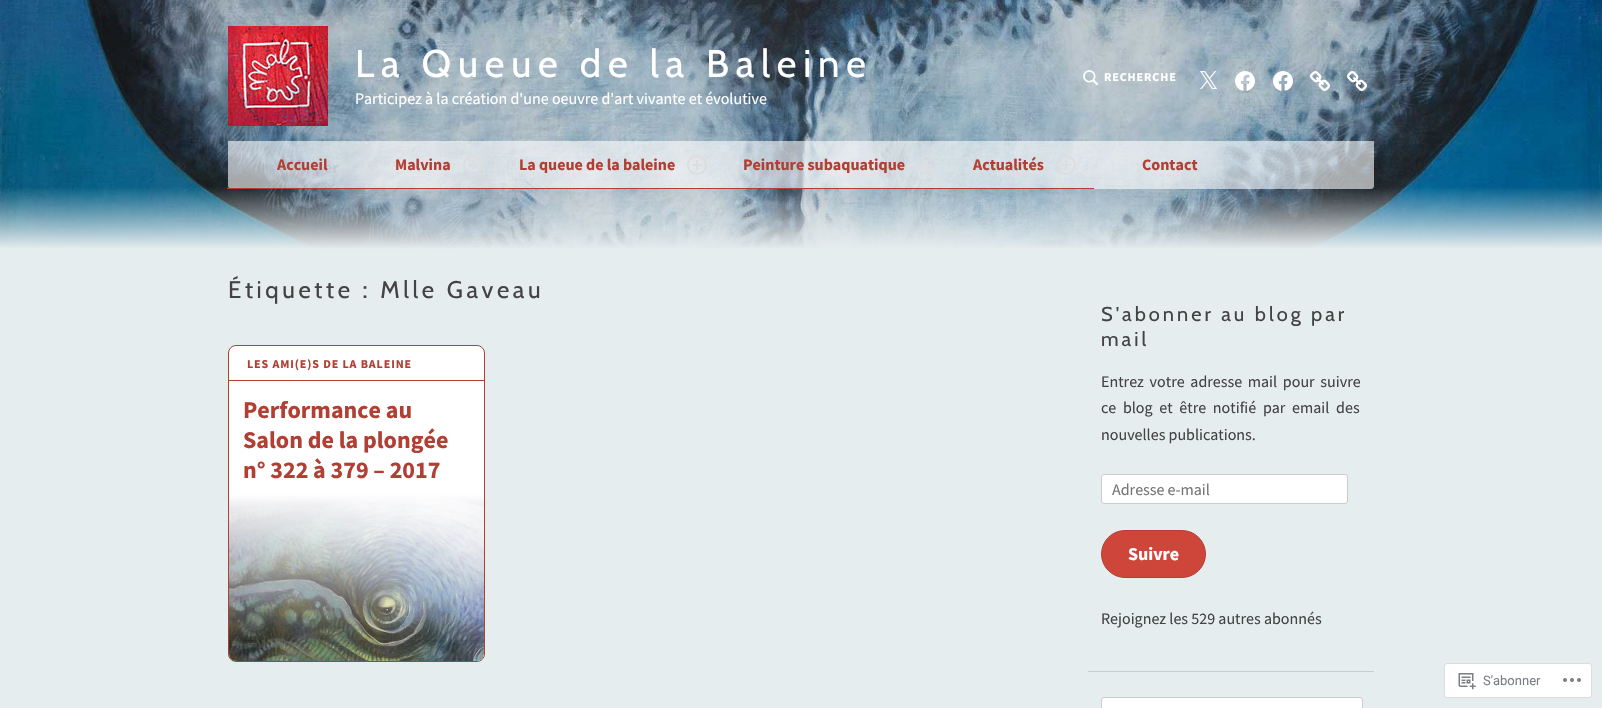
void draw(SkCanvas* canvas) {
  SkPaint paint;
  paint.setAntiAlias(true);
  auto face = [&](const char* family, int weight, float size, bool italic = false) {
    SkFontStyle style(weight, SkFontStyle::kNormal_Width,
      italic ? SkFontStyle::kItalic_Slant : SkFontStyle::kUpright_Slant);
    SkFont result(fontMgr->matchFamilyStyle(family, style), size);
    result.setSubpixel(true);
    return result;
  };
  auto writeSpaced = [&](const char* s, float x, float y, const SkFont& font, const SkPaint& ink, float letter, float word) {
    std::vector<SkGlyphID> glyphs(font.countText(s, strlen(s), SkTextEncoding::kUTF8));
    std::vector<float> xs(glyphs.size());
    font.textToGlyphs(s, strlen(s), SkTextEncoding::kUTF8, glyphs);
    font.getXPos(glyphs, xs, x);
    float extra = 0;
    for (size_t i = 0; i < glyphs.size(); i++) {
      xs[i] += extra;
      extra += letter + word * (glyphs[i] == font.unicharToGlyph(' '));
    }
    canvas->drawTextBlob(SkTextBlob::MakeFromPosHGlyphs(glyphs, xs, y, font), 0, 0, ink);
  };
  auto paste = [&](const char* path, float x, float y, float w, float h) {
    auto image = SkImages::DeferredFromEncodedData(SkData::MakeFromFileName(path));
    canvas->drawImageRect(image, SkRect::MakeXYWH(x, y, w, h), SkSamplingOptions());
  };
  auto shape = [&](const char* data, bool evenOdd = false) {
    SkPath result = *SkParsePath::FromSVGString(data);
    if (evenOdd) result.setFillType(SkPathFillType::kEvenOdd);
    return result;
  };
  canvas->clear(0xffe6edef);
  paste("img/1.png", 0, 0, 1602, 249);
  paste("img/2.png", 228, 26, 100, 100);
  paste("img/3.png", 1083, 70, 16, 16);
  paste("img/4.png", 1200, 71, 17, 18);
  paste("img/5.png", 1235, 71, 20, 20);
  paste("img/6.png", 1273, 71, 20, 20);
  paste("img/7.png", 1310, 71, 20, 20);
  paste("img/8.png", 1347, 71, 20, 20);
  paint.setColor(0xffffffff);
  canvas->drawRoundRect(SkRect::MakeXYWH(228.5f, 345.5f, 256, 316), 7.5f, 7.5f, paint);
  paint.setStroke(true);
  paint.setStrokeWidth(1);
  paint.setColor(0xffb23f33);
  canvas->drawRoundRect(SkRect::MakeXYWH(228.5f, 345.5f, 256, 316), 7.5f, 7.5f, paint);
  paint.setStroke(false);
  canvas->drawRect(SkRect::MakeXYWH(229, 380, 255, 1), paint);
  paste("img/13.png", 229, 495, 255, 166);
  {
    const SkColor colors[] = {0xffffffff, 0x00ffffff};
    const float stops[] = {0.05f, 0.9f};
    const SkPoint ends[] = {{357, 485}, {357, 661}};
    paint.setShader(SkGradientShader::MakeLinear(ends, colors, stops, 2, SkTileMode::kClamp));
    paint.setAlpha(255);
  }
  canvas->drawRect(SkRect::MakeXYWH(229, 495, 255, 145), paint);
  paint.setShader(nullptr);
  paint.setColor(0xffffffff);
  canvas->drawRoundRect(SkRect::MakeXYWH(1101.5f, 474.5f, 246, 29), 2.5f, 2.5f, paint);
  paint.setStroke(true);
  paint.setColor(0xffcccccc);
  canvas->drawRoundRect(SkRect::MakeXYWH(1101.5f, 474.5f, 246, 29), 2.5f, 2.5f, paint);
  paint.setStroke(false);
  paint.setColor(0xffce4639);
  canvas->drawRoundRect(SkRect::MakeXYWH(1101.5f, 530.5f, 104, 47), 23.5f, 23.5f, paint);
  paint.setStroke(true);
  paint.setColor(0xffb23f33);
  canvas->drawRoundRect(SkRect::MakeXYWH(1101.5f, 530.5f, 104, 47), 23.5f, 23.5f, paint);
  paint.setStroke(false);
  paint.setColor(0xffcfccc7);
  canvas->drawRect(SkRect::MakeXYWH(1088, 671, 286, 1), paint);
  paint.setColor(0xffffffff);
  canvas->drawRoundRect(SkRect::MakeXYWH(1101.5f, 697.5f, 261, 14), 2.5f, 2.5f, paint);
  paint.setStroke(true);
  paint.setColor(0xffcccccc);
  canvas->drawRoundRect(SkRect::MakeXYWH(1101.5f, 697.5f, 261, 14), 2.5f, 2.5f, paint);
  paint.setStroke(false);
  paint.setColor(0xffffffff);
  canvas->drawRoundRect(SkRect::MakeXYWH(1444.5f, 663.5f, 147, 34), 2.5f, 2.5f, paint);
  paint.setStroke(true);
  paint.setColor(0xffdcdcde);
  canvas->drawRoundRect(SkRect::MakeXYWH(1444.5f, 663.5f, 147, 34), 2.5f, 2.5f, paint);
  paste("img/14.png", 1458, 673, 18, 17);
  paste("img/15.png", 1563, 678, 18, 4);
  auto f0 = face("Cabin", 400, 38.4f);
  paint.setStroke(false);
  paint.setColor(0xffffffff);
  writeSpaced("La Queue de la Baleine", 355, 77, f0, paint, 6.75f, 0);
  auto f1 = face("Source Sans Pro", 400, 16);
  canvas->drawString("Participez à la création d'une oeuvre d'art vivante et évolutive", 355, 104, f1, paint);
  auto f2 = face("Source Sans Pro", 700, 12);
  writeSpaced("RECHERCHE", 1104, 81, f2, paint, 0.9f, 0);
  auto f3 = face("Source Sans Pro", 700, 16);
  paint.setColor(0xff5f7b91);
  canvas->drawString("er", 324, 173, f3, paint);
  paint.setColor(0x99ffffff);
  canvas->drawPath(shape("M228 141H1374V186C1374 187.5 1372.5 189 1371 189H231C229.5 189 228 187.5 228 186Z"), paint);
  paint.setColor(0xffb23f33);
  {
    const struct { const char* s; float x, y; } items[] = {
      {"Contact", 1142, 170},
      {"Actualités", 973, 170},
      {"Peinture subaquatique", 743, 170},
      {"La queue de la baleine", 519, 170},
      {"Malvina", 395, 170},
      {"Accueil", 277, 170},
    };
    for (auto [s, x, y] : items) {
      canvas->drawString(s, x, y, f3, paint);
    }
  }
  paint.setStroke(true);
  paint.setStrokeWidth(2);
  paint.setColor(0xffdddddd);
  canvas->drawCircle(1066, 165, 9, paint);
  paste("img/12.png", 1061, 160, 10, 10);
  canvas->drawCircle(927, 165, 9, paint);
  paste("img/11.png", 922, 160, 10, 10);
  canvas->drawCircle(697, 165, 9, paint);
  paste("img/10.png", 692, 160, 10, 10);
  canvas->drawCircle(473, 165, 9, paint);
  paste("img/9.png", 468, 160, 10, 10);
  paint.setStroke(false);
  paint.setColor(0xffb23f33);
  canvas->drawRect(SkRect::MakeXYWH(227, 188, 867, 1), paint);
  auto f4 = face("Cabin", 400, 24);
  paint.setColor(0xff434343);
  writeSpaced("Étiquette : Mlle Gaveau", 228, 298, f4, paint, 3.6f, 0);
  paint.setColor(0xffb23f33);
  writeSpaced("LES AMI(E)S DE LA BALEINE", 247, 368, f2, paint, 0.9f, 0);
  auto f5 = face("Source Sans Pro", 700, 24);
  {
    const struct { const char* s; float x, y; } items[] = {
      {"Performance au", 243, 418},
      {"Salon de la plongée", 243, 448},
      {"n° 322 à 379 – 2017", 243, 478},
    };
    for (auto [s, x, y] : items) {
      canvas->drawString(s, x, y, f5, paint);
    }
  }
  auto f6 = face("Cabin", 400, 20);
  paint.setColor(0xff434343);
  writeSpaced("S'abonner au blog par", 1101, 321, f6, paint, 3, 0);
  writeSpaced("mail", 1101, 346, f6, paint, 3, 0);
  writeSpaced("Entrez votre adresse mail pour suivre", 1101, 387, f1, paint, 0, 2.5f);
  writeSpaced("ce blog et être notifié par email des", 1101, 413, f1, paint, 0, 3.5f);
  canvas->drawString("nouvelles publications.", 1101, 440, f1, paint);
  paint.setColor(0xff757575);
  canvas->drawString("Adresse e-mail", 1112, 495, f1, paint);
  auto f7 = face("Source Sans Pro", 700, 18);
  paint.setColor(0xffffffff);
  canvas->drawString("Suivre", 1128, 560, f7, paint);
  paint.setColor(0xff434343);
  canvas->drawString("Rejoignez les 529 autres abonnés", 1101, 624, f1, paint);
  auto f8 = face("Roboto", 400, 13);
  paint.setColor(0xff7a7e84);
  canvas->drawString("S'abonner", 1483, 685, f8, paint);
}
